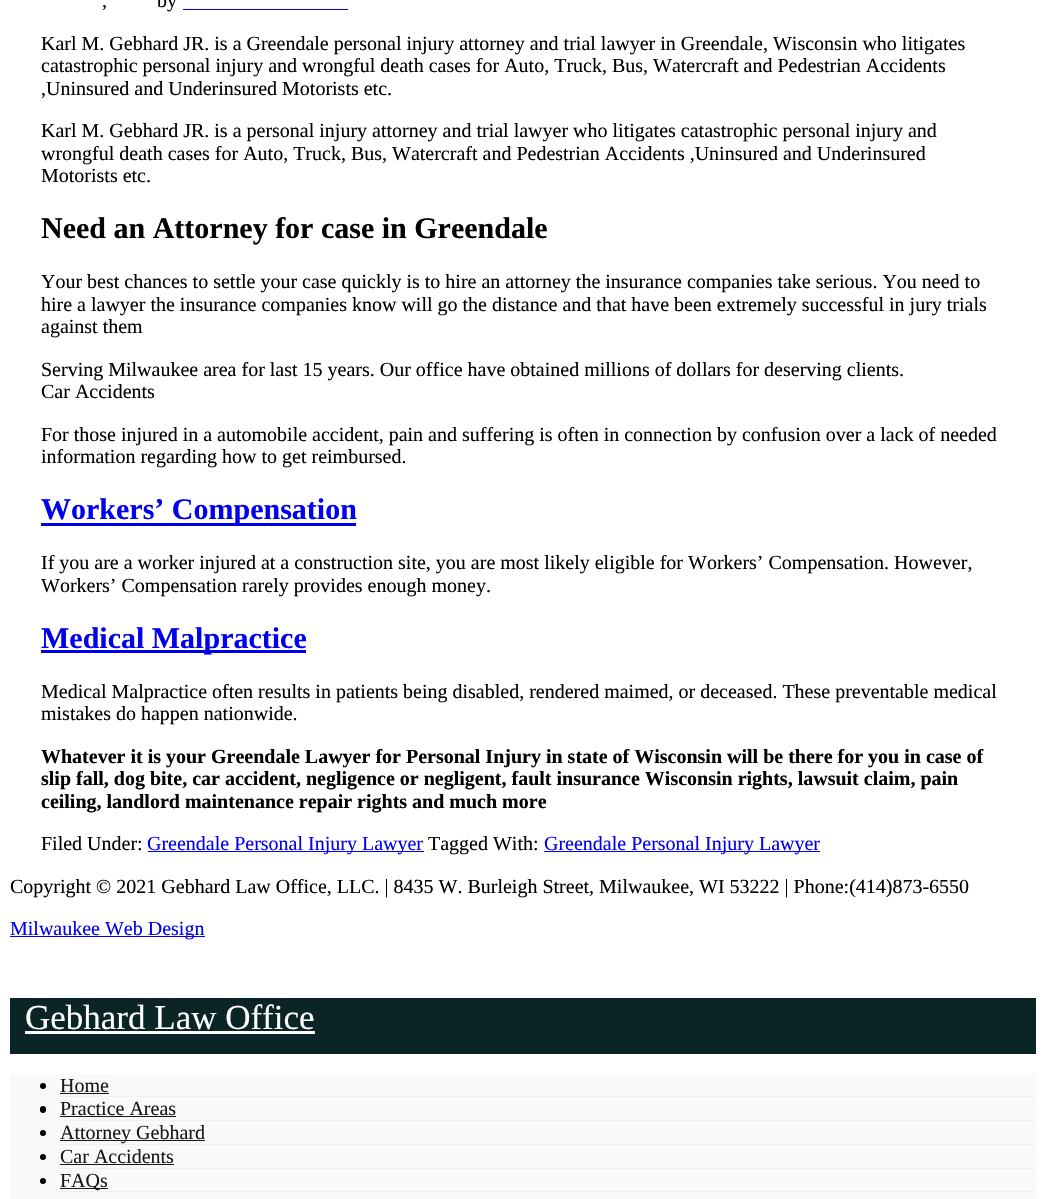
void draw(SkCanvas* canvas) {
  SkPaint paint;
  paint.setAntiAlias(true);
  auto face = [&](const char* family, int weight, float size, bool italic = false) {
    SkFontStyle style(weight, SkFontStyle::kNormal_Width,
      italic ? SkFontStyle::kItalic_Slant : SkFontStyle::kUpright_Slant);
    SkFont result(fontMgr->matchFamilyStyle(family, style), size);
    result.setSubpixel(true);
    return result;
  };
  canvas->clear(0xffffffff);
  {
    const struct { float x, y, w, h; SkColor color; } items[] = {
      {183, 9, 165, 1, 0xff0000ee},
      {41, 523, 315, 3, 0xff0000ee},
      {41, 650, 265, 3, 0xff0000ee},
      {148, 851, 276, 1, 0xff0000ee},
      {544, 851, 276, 1, 0xff0000ee},
      {10, 936, 195, 1, 0xff0000ee},
      {10, 998, 1026, 56, 0xff0b2527},
      {25, 1031, 290, 3, 0xffffffff},
      {10, 1074, 1026, 125, 0xfffaf8f8},
      {60, 1096, 976, 1, 0xffefefef},
    };
    for (auto [x, y, w, h, color] : items) {
      paint.setColor(color);
      canvas->drawRect(SkRect::MakeXYWH(x, y, w, h), paint);
    }
  }
  paint.setColor(0xff000000);
  canvas->drawCircle(43, 1086, 3, paint);
  paint.setColor(0xff15191c);
  canvas->drawRect(SkRect::MakeXYWH(60, 1093, 49, 1), paint);
  paint.setColor(0xffefefef);
  canvas->drawRect(SkRect::MakeXYWH(60, 1120, 976, 1), paint);
  paint.setColor(0xff000000);
  canvas->drawRoundRect(SkRect::MakeXYWH(40, 1106, 6, 7), 3, 3, paint);
  paint.setColor(0xff15191c);
  canvas->drawRect(SkRect::MakeXYWH(60, 1116, 116, 1), paint);
  paint.setColor(0xffefefef);
  canvas->drawRect(SkRect::MakeXYWH(60, 1144, 976, 1), paint);
  paint.setColor(0xff000000);
  canvas->drawCircle(43, 1133, 3, paint);
  paint.setColor(0xff15191c);
  canvas->drawRect(SkRect::MakeXYWH(60, 1140, 145, 1), paint);
  paint.setColor(0xffefefef);
  canvas->drawRect(SkRect::MakeXYWH(60, 1168, 976, 1), paint);
  paint.setColor(0xff000000);
  canvas->drawCircle(43, 1157, 3, paint);
  paint.setColor(0xff15191c);
  canvas->drawRect(SkRect::MakeXYWH(60, 1164, 114, 1), paint);
  paint.setColor(0xffefefef);
  canvas->drawRect(SkRect::MakeXYWH(60, 1191, 976, 1), paint);
  paint.setColor(0xff000000);
  canvas->drawCircle(43, 1181, 3, paint);
  paint.setColor(0xff15191c);
  canvas->drawRect(SkRect::MakeXYWH(60, 1188, 48, 1), paint);
  auto f0 = face("Liberation Serif", 400, 20);
  paint.setColor(0xff000000);
  {
    const struct { const char* s; float x, y; } items[] = {
      {",", 102, 7},
      {"by", 157, 7},
      {"Karl M. Gebhard JR. is a Greendale personal injury attorney and trial lawyer in Greendale, Wisconsin who litigates", 41, 50},
      {"catastrophic personal injury and wrongful death cases for Auto, Truck, Bus, Watercraft and Pedestrian Accidents", 41, 72},
      {",Uninsured and Underinsured Motorists etc.", 41, 95},
      {"Karl M. Gebhard JR. is a personal injury attorney and trial lawyer who litigates catastrophic personal injury and", 41, 137},
      {"wrongful death cases for Auto, Truck, Bus, Watercraft and Pedestrian Accidents ,Uninsured and Underinsured", 41, 160},
      {"Motorists etc.", 41, 182},
    };
    for (auto [s, x, y] : items) {
      canvas->drawString(s, x, y, f0, paint);
    }
  }
  auto f1 = face("Liberation Serif", 700, 30);
  canvas->drawString("Need an Attorney for case in Greendale", 41, 238, f1, paint);
  {
    const struct { const char* s; float x, y; } items[] = {
      {"Your best chances to settle your case quickly is to hire an attorney the insurance companies take serious. You need to", 41, 288},
      {"hire a lawyer the insurance companies know will go the distance and that have been extremely successful in jury trials", 41, 311},
      {"against them", 41, 333},
      {"Serving Milwaukee area for last 15 years. Our office have obtained millions of dollars for deserving clients.", 41, 376},
      {"Car Accidents", 41, 398},
      {"For those injured in a automobile accident, pain and suffering is often in connection by confusion over a lack of needed", 41, 441},
      {"information regarding how to get reimbursed.", 41, 463},
    };
    for (auto [s, x, y] : items) {
      canvas->drawString(s, x, y, f0, paint);
    }
  }
  paint.setColor(0xff0000ee);
  canvas->drawString("Workers’ Compensation", 41, 519, f1, paint);
  paint.setColor(0xff000000);
  canvas->drawString("If you are a worker injured at a construction site, you are most likely eligible for Workers’ Compensation. However,", 41, 569, f0, paint);
  canvas->drawString("Workers’ Compensation rarely provides enough money.", 41, 592, f0, paint);
  paint.setColor(0xff0000ee);
  canvas->drawString("Medical Malpractice", 41, 648, f1, paint);
  paint.setColor(0xff000000);
  canvas->drawString("Medical Malpractice often results in patients being disabled, rendered maimed, or deceased. These preventable medical", 41, 698, f0, paint);
  canvas->drawString("mistakes do happen nationwide.", 41, 720, f0, paint);
  auto f2 = face("Liberation Serif", 700, 20);
  {
    const struct { const char* s; float x, y; } items[] = {
      {"Whatever it is your Greendale Lawyer for Personal Injury in state of Wisconsin will be there for you in case of", 41, 763},
      {"slip fall, dog bite, car accident, negligence or negligent, fault insurance Wisconsin rights, lawsuit claim, pain", 41, 785},
      {"ceiling, landlord maintenance repair rights and much more", 41, 808},
    };
    for (auto [s, x, y] : items) {
      canvas->drawString(s, x, y, f2, paint);
    }
  }
  canvas->drawString("Filed Under:", 41, 850, f0, paint);
  paint.setColor(0xff0000ee);
  canvas->drawString("Greendale Personal Injury Lawyer", 147, 850, f0, paint);
  paint.setColor(0xff000000);
  canvas->drawString("Tagged With:", 428, 850, f0, paint);
  paint.setColor(0xff0000ee);
  canvas->drawString("Greendale Personal Injury Lawyer", 544, 850, f0, paint);
  paint.setColor(0xff000000);
  canvas->drawString("Copyright © 2021 Gebhard Law Office, LLC. | 8435 W. Burleigh Street, Milwaukee, WI 53222 | Phone:(414)873-6550", 10, 893, f0, paint);
  paint.setColor(0xff0000ee);
  canvas->drawString("Milwaukee Web Design", 10, 935, f0, paint);
  auto f3 = face("Liberation Serif", 400, 35);
  paint.setColor(0xffffffff);
  canvas->drawString("Gebhard Law Office", 25, 1029, f3, paint);
  paint.setColor(0xff15191c);
  {
    const struct { const char* s; float x, y; } items[] = {
      {"Home", 60, 1092},
      {"Practice Areas", 60, 1115},
      {"Attorney Gebhard", 60, 1139},
      {"Car Accidents", 60, 1163},
      {"FAQs", 60, 1187},
    };
    for (auto [s, x, y] : items) {
      canvas->drawString(s, x, y, f0, paint);
    }
  }
}
